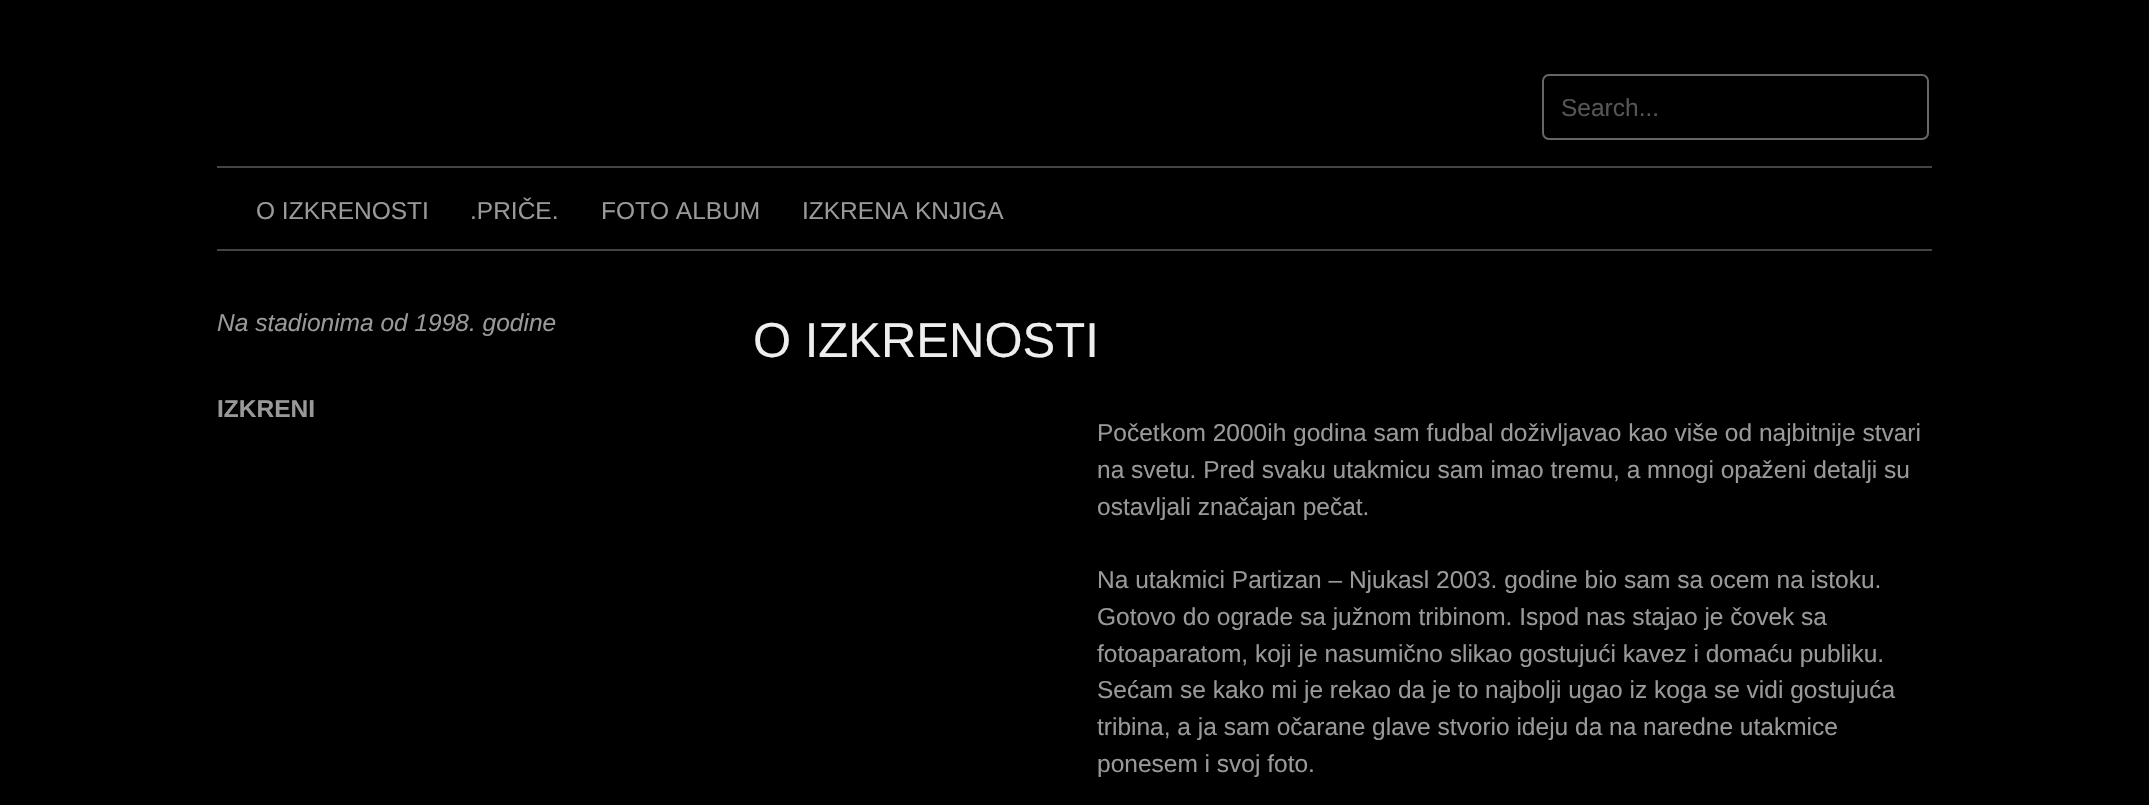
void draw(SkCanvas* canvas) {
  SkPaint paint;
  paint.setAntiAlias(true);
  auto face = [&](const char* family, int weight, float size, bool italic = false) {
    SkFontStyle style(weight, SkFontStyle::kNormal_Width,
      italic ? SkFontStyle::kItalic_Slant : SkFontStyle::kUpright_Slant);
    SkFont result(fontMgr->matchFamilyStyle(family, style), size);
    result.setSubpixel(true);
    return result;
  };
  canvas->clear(0xff000000);
  paint.setStroke(true);
  paint.setStrokeWidth(2);
  paint.setColor(0xff666666);
  canvas->drawRoundRect(SkRect::MakeXYWH(1543, 75, 385, 64), 6, 6, paint);
  paint.setStroke(false);
  paint.setColor(0xff444444);
  canvas->drawRect(SkRect::MakeXYWH(217, 166, 1715, 2), paint);
  canvas->drawRect(SkRect::MakeXYWH(217, 249, 1715, 2), paint);
  auto f0 = face("Liberation Sans", 400, 24.5f);
  paint.setColor(0xff555555);
  canvas->drawString("Search...", 1561, 116, f0, paint);
  paint.setColor(0xff999999);
  {
    const struct { const char* s; float x, y; } items[] = {
      {"O IZKRENOSTI", 256, 219},
      {".PRIČE.", 470, 219},
      {"FOTO ALBUM", 601, 219},
      {"IZKRENA KNJIGA", 802, 219},
    };
    for (auto [s, x, y] : items) {
      canvas->drawString(s, x, y, f0, paint);
    }
  }
  auto f1 = face("Liberation Sans", 400, 24.5f, true);
  canvas->drawString("Na stadionima od 1998. godine", 217, 331, f1, paint);
  auto f2 = face("Liberation Sans", 700, 24.5f);
  canvas->drawString("IZKRENI", 217, 417, f2, paint);
  auto f3 = face("Liberation Sans", 400, 49);
  paint.setColor(0xffeeeeee);
  canvas->drawString("O IZKRENOSTI", 753, 357, f3, paint);
  paint.setColor(0xff999999);
  {
    const struct { const char* s; float x, y; } items[] = {
      {"Početkom 2000ih godina sam fudbal doživljavao kao više od najbitnije stvari", 1097, 441},
      {"na svetu. Pred svaku utakmicu sam imao tremu, a mnogi opaženi detalji su", 1097, 478},
      {"ostavljali značajan pečat.", 1097, 515},
      {"Na utakmici Partizan – Njukasl 2003. godine bio sam sa ocem na istoku.", 1097, 588},
      {"Gotovo do ograde sa južnom tribinom. Ispod nas stajao je čovek sa", 1097, 625},
      {"fotoaparatom, koji je nasumično slikao gostujući kavez i domaću publiku.", 1097, 662},
      {"Sećam se kako mi je rekao da je to najbolji ugao iz koga se vidi gostujuća", 1097, 698},
      {"tribina, a ja sam očarane glave stvorio ideju da na naredne utakmice", 1097, 735},
      {"ponesem i svoj foto.", 1097, 772},
    };
    for (auto [s, x, y] : items) {
      canvas->drawString(s, x, y, f0, paint);
    }
  }
}
